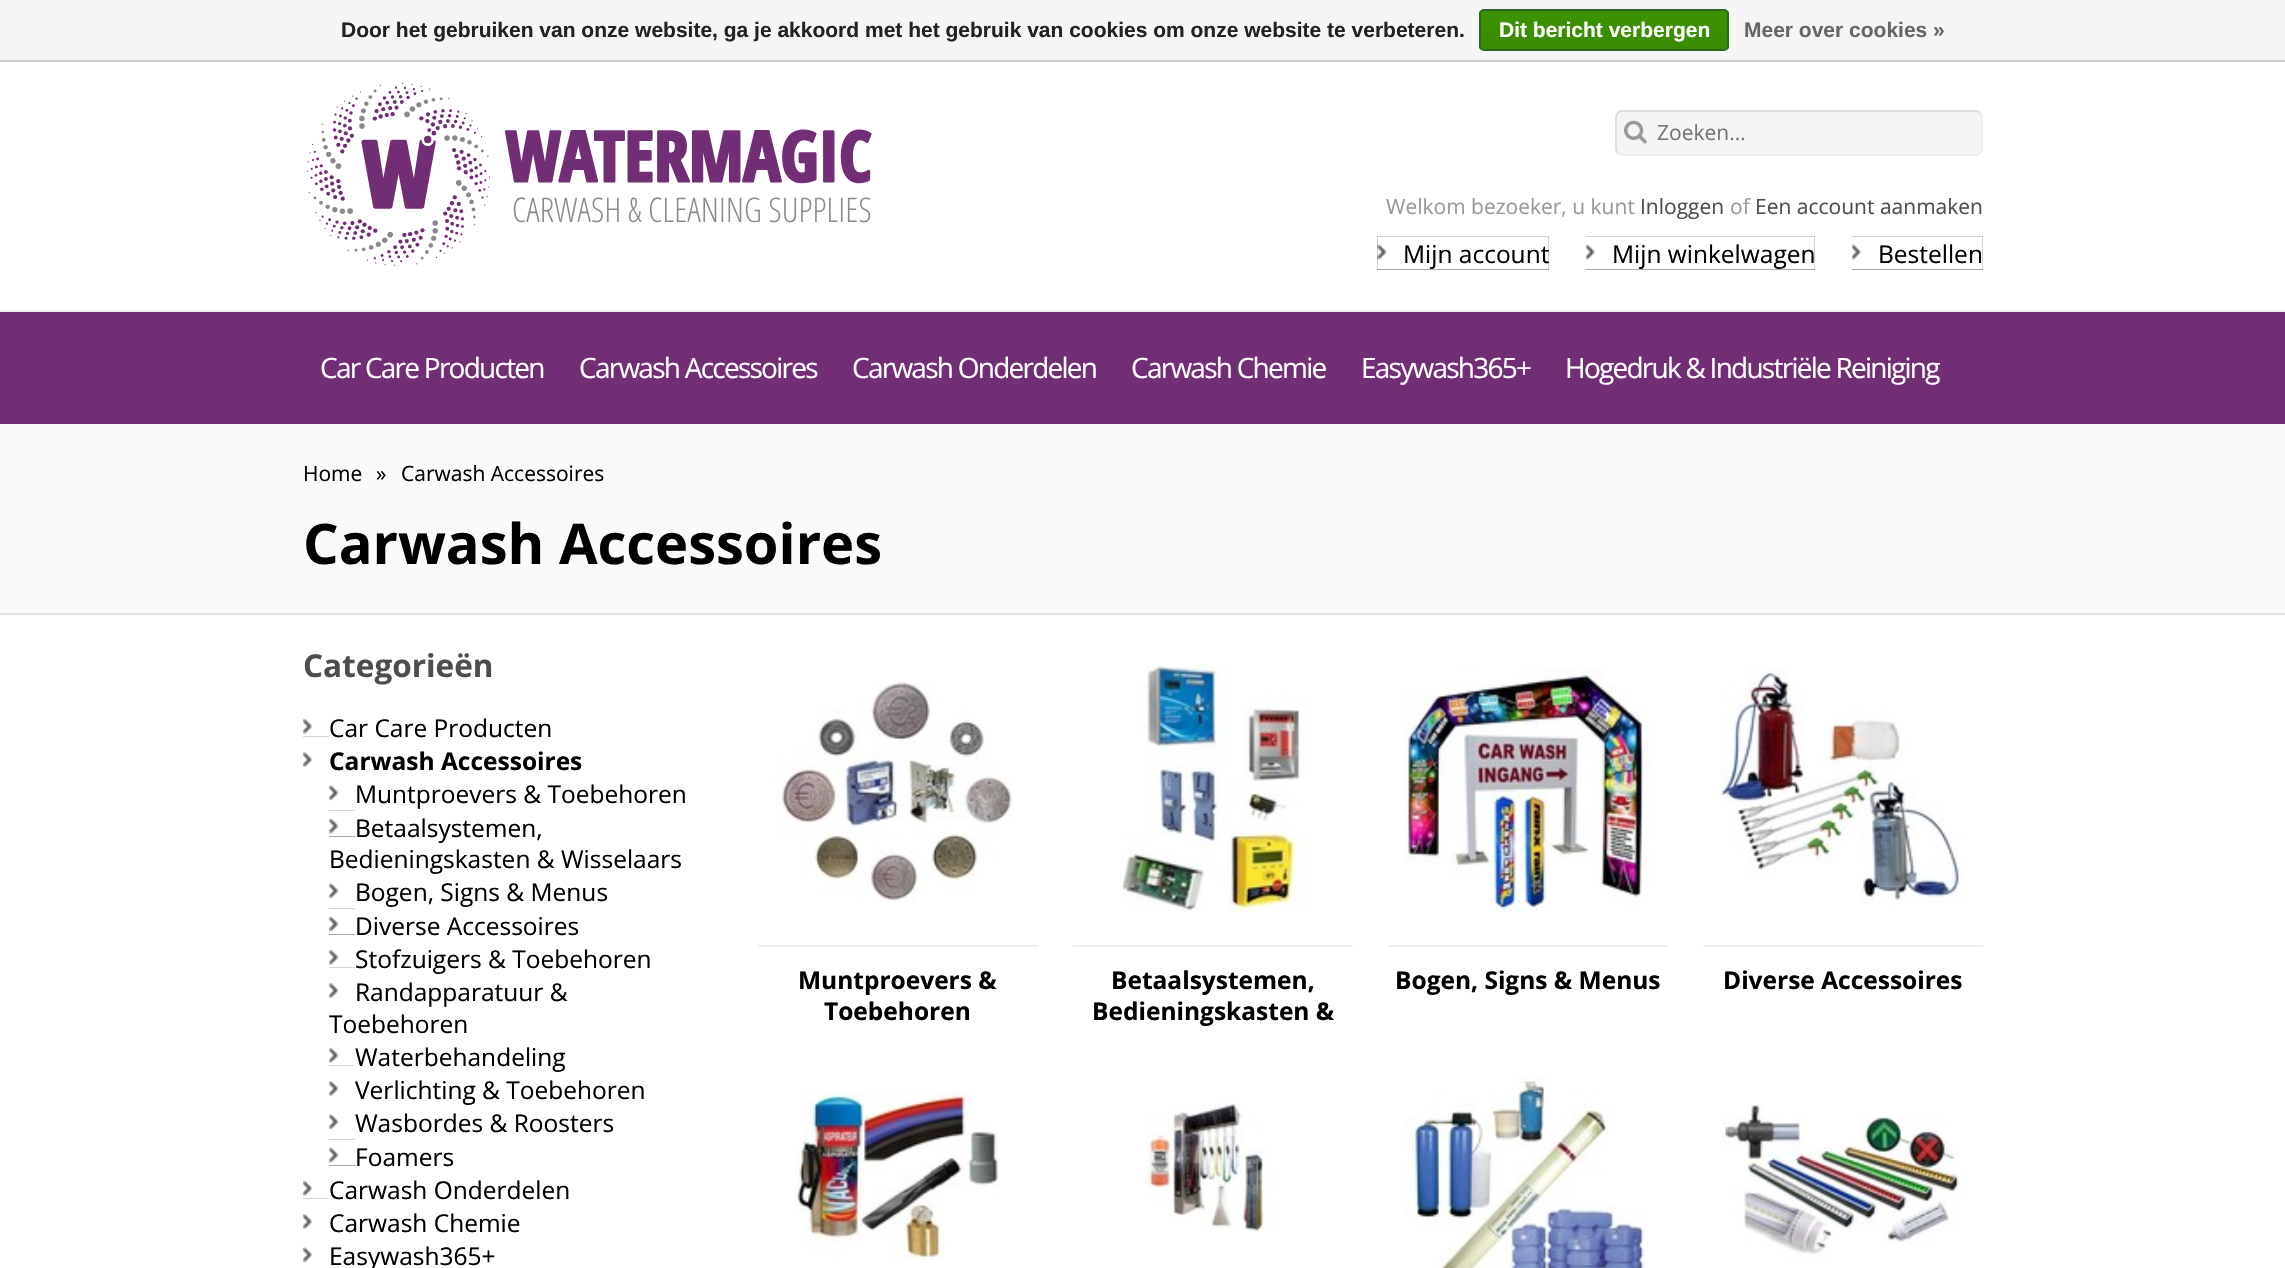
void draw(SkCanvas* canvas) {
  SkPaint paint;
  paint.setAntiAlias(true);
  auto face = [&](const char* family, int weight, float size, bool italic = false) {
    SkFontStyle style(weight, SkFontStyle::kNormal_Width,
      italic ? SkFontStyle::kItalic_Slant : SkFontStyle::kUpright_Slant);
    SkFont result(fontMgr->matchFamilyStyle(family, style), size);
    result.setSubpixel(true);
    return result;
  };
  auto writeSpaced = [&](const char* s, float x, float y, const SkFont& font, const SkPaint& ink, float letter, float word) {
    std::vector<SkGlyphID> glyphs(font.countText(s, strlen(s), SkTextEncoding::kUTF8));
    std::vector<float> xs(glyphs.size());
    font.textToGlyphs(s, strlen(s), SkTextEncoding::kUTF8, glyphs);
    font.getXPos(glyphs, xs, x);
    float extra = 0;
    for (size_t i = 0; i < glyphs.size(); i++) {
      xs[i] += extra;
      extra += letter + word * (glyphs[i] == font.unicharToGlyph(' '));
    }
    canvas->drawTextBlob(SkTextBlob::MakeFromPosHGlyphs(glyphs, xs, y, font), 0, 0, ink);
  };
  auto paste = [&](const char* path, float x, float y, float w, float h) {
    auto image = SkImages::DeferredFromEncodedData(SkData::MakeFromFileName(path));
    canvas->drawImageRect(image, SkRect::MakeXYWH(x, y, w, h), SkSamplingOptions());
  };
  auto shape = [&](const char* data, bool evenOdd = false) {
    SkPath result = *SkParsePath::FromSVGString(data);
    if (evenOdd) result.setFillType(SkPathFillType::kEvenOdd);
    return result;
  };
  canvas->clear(0xffffffff);
  paint.setColor(0xfff5f5f5);
  canvas->drawRect(SkRect::MakeXYWH(0, 0, 2285, 60), paint);
  paint.setColor(0xffcccccc);
  canvas->drawRect(SkRect::MakeXYWH(0, 60, 2285, 2), paint);
  canvas->save();
  canvas->clipPath(shape("M1484 9H1724C1727 9 1729 11 1729 14V46C1729 49 1727 51 1724 51H1484C1481 51 1479 49 1479 46V14C1479 11 1481 9 1484 9Z"), true);
  {
    const SkColor colors[] = {0xff3c9300, 0xff398a00};
    const float stops[] = {0, 1};
    const SkPoint ends[] = {{1604, 10}, {1604, 49}};
    paint.setShader(SkGradientShader::MakeLinear(ends, colors, stops, 2, SkTileMode::kClamp));
    paint.setAlpha(255);
  }
  canvas->drawRect(SkRect::MakeXYWH(1479, 11, 250, 38), paint);
  canvas->restore();
  paint.setStroke(true);
  paint.setStrokeWidth(2);
  paint.setShader(nullptr);
  paint.setColor(0xff29691d);
  canvas->drawRoundRect(SkRect::MakeXYWH(1480, 10, 248, 40), 4, 4, paint);
  paste("img/1.png", 306, 83, 566, 183);
  paint.setStroke(false);
  paint.setColor(0xfff5f5f5);
  canvas->drawRoundRect(SkRect::MakeXYWH(1615, 110, 368, 46), 7, 7, paint);
  paint.setStroke(true);
  paint.setStrokeWidth(1.8f);
  paint.setColor(0xffeeeeee);
  canvas->drawPath(shape("M1980 113C1981 114 1982 115.5 1982 117V149C1982 150.5 1981 152 1980 153C1979 154 1977.5 155 1976 155H1622C1620.5 155 1619 154 1618 153"), paint);
  paint.setColor(0xffdddddd);
  canvas->drawPath(shape("M1618 153C1617 152 1616 150.5 1616 149V117C1616 115.5 1617 114 1618 113C1619 112 1620.5 111 1622 111H1976C1977.5 111 1979 112 1980 113"), paint);
  paste("img/2.png", 1624, 120, 23, 24);
  paint.setStroke(false);
  paint.setColor(0xff4d4d4d);
  canvas->drawRect(SkRect::MakeXYWH(1377, 236, 172, 34), paint);
  paste("img/3.png", 1377, 236, 172, 34);
  canvas->drawRect(SkRect::MakeXYWH(1586, 236, 229, 34), paint);
  paste("img/4.png", 1586, 236, 229, 34);
  canvas->drawRect(SkRect::MakeXYWH(1852, 236, 131, 34), paint);
  paste("img/5.png", 1852, 236, 131, 34);
  {
    const struct { float x, y, w, h; SkColor color; } items[] = {
      {0, 312, 2285, 112, 0xff722e74},
      {0, 310, 2285, 2, 0xffeeeeee},
      {0, 424, 2285, 189, 0xfffafafa},
      {0, 613, 2285, 2, 0xffe4e4e4},
      {303, 718, 26, 19, 0xff4d4d4d},
    };
    for (auto [x, y, w, h, color] : items) {
      paint.setColor(color);
      canvas->drawRect(SkRect::MakeXYWH(x, y, w, h), paint);
    }
  }
  paste("img/6.png", 303, 711, 26, 26);
  canvas->drawRect(SkRect::MakeXYWH(303, 752, 9, 15), paint);
  paste("img/7.png", 303, 744, 26, 26);
  canvas->drawRect(SkRect::MakeXYWH(329, 785, 10, 16), paint);
  paste("img/8.png", 329, 777, 26, 26);
  canvas->drawRect(SkRect::MakeXYWH(329, 810, 26, 27), paint);
  paste("img/9.png", 329, 810, 26, 27);
  canvas->drawRect(SkRect::MakeXYWH(329, 883, 10, 16), paint);
  paste("img/8.png", 329, 875, 26, 26);
  canvas->drawRect(SkRect::MakeXYWH(329, 908, 26, 27), paint);
  paste("img/9.png", 329, 908, 26, 27);
  canvas->drawRect(SkRect::MakeXYWH(329, 949, 26, 19), paint);
  paste("img/10.png", 329, 942, 26, 26);
  canvas->drawRect(SkRect::MakeXYWH(329, 983, 10, 15), paint);
  paste("img/11.png", 329, 975, 26, 26);
  canvas->drawRect(SkRect::MakeXYWH(329, 1047, 26, 19), paint);
  paste("img/10.png", 329, 1040, 26, 26);
  canvas->drawRect(SkRect::MakeXYWH(329, 1081, 10, 15), paint);
  paste("img/11.png", 329, 1073, 26, 26);
  canvas->drawRect(SkRect::MakeXYWH(329, 1114, 10, 16), paint);
  paste("img/8.png", 329, 1106, 26, 26);
  canvas->drawRect(SkRect::MakeXYWH(329, 1139, 26, 27), paint);
  paste("img/9.png", 329, 1139, 26, 27);
  canvas->drawRect(SkRect::MakeXYWH(303, 1180, 26, 19), paint);
  paste("img/6.png", 303, 1173, 26, 26);
  canvas->drawRect(SkRect::MakeXYWH(303, 1214, 9, 15), paint);
  paste("img/7.png", 303, 1206, 26, 26);
  canvas->drawRect(SkRect::MakeXYWH(303, 1247, 9, 16), paint);
  paste("img/12.png", 303, 1239, 26, 26);
  paste("img/13.png", 775, 681, 238, 222);
  paint.setColor(0xffeeeeee);
  canvas->drawRect(SkRect::MakeXYWH(758, 945, 280, 2), paint);
  paste("img/14.png", 1120, 666, 190, 246);
  paste("img/15.png", 1157, 666, 10, 1);
  canvas->drawRect(SkRect::MakeXYWH(1073, 945, 280, 2), paint);
  paste("img/16.png", 1405, 667, 245, 245);
  paint.setColor(0xfff4f7e8);
  canvas->drawRect(SkRect::MakeXYWH(1405, 740, 1, 2), paint);
  paint.setColor(0xffeeeeee);
  canvas->drawRect(SkRect::MakeXYWH(1388, 945, 280, 2), paint);
  paste("img/17.png", 1720, 667, 243, 238);
  canvas->drawRect(SkRect::MakeXYWH(1703, 945, 280, 2), paint);
  paste("img/18.png", 795, 1090, 204, 170);
  paste("img/19.png", 1145, 1103, 133, 129);
  paste("img/20.png", 1405, 1076, 243, 192);
  paste("img/21.png", 1722, 1104, 243, 154);
  auto f0 = face("Liberation Sans", 700, 21);
  paint.setColor(0xff222222);
  canvas->drawString("Door het gebruiken van onze website, ga je akkoord met het gebruik van cookies om onze website te verbeteren.", 341, 37, f0, paint);
  paint.setColor(0xffffffff);
  canvas->drawString("Dit bericht verbergen", 1499, 37, f0, paint);
  paint.setColor(0xff666666);
  canvas->drawString("Meer over cookies »", 1744, 37, f0, paint);
  auto f1 = face("Open Sans", 400, 21);
  paint.setColor(0xff757575);
  canvas->drawString("Zoeken...", 1657, 140, f1, paint);
  paint.setColor(0xff999999);
  canvas->drawString("Welkom bezoeker, u kunt", 1386, 214, f1, paint);
  paint.setColor(0xff4d4d4d);
  canvas->drawString("Inloggen", 1640, 214, f1, paint);
  paint.setColor(0xff999999);
  canvas->drawString("of", 1730, 214, f1, paint);
  paint.setColor(0xff4d4d4d);
  canvas->drawString("Een account aanmaken", 1755, 214, f1, paint);
  auto f2 = face("Open Sans", 400, 24.5f);
  paint.setColor(0xff000000);
  {
    const struct { const char* s; float x, y; } items[] = {
      {"Mijn account", 1403, 263},
      {"Mijn winkelwagen", 1612, 263},
      {"Bestellen", 1878, 263},
    };
    for (auto [s, x, y] : items) {
      canvas->drawString(s, x, y, f2, paint);
    }
  }
  auto f3 = face("Open Sans", 400, 28);
  paint.setColor(0xffffffff);
  {
    const struct { const char* s; float x, y; } items[] = {
      {"Car Care Producten", 320, 378},
      {"Carwash Accessoires", 579, 378},
      {"Carwash Onderdelen", 852, 378},
      {"Carwash Chemie", 1131, 378},
      {"Easywash365+", 1361, 378},
      {"Hogedruk & Industriële Reiniging", 1565, 378},
    };
    for (auto [s, x, y] : items) {
      writeSpaced(s, x, y, f3, paint, -1.75f, 0);
    }
  }
  paint.setColor(0xff000000);
  {
    const struct { const char* s; float x, y; } items[] = {
      {"Home", 303, 481},
      {"»", 376, 481},
      {"Carwash Accessoires", 401, 481},
    };
    for (auto [s, x, y] : items) {
      canvas->drawString(s, x, y, f1, paint);
    }
  }
  auto f4 = face("Open Sans", 700, 56);
  canvas->drawString("Carwash Accessoires", 303, 564, f4, paint);
  auto f5 = face("Open Sans", 700, 31.5f);
  paint.setColor(0xff4d4d4d);
  canvas->drawString("Categorieën", 303, 677, f5, paint);
  paint.setColor(0xff000000);
  canvas->drawString("Car Care Producten", 329, 737, f2, paint);
  auto f6 = face("Open Sans", 700, 24.5f);
  canvas->drawString("Carwash Accessoires", 329, 770, f6, paint);
  {
    const struct { const char* s; float x, y; } items[] = {
      {"Muntproevers & Toebehoren", 355, 803},
      {"Betaalsystemen,", 355, 837},
      {"Bedieningskasten & Wisselaars", 329, 868},
      {"Bogen, Signs & Menus", 355, 901},
      {"Diverse Accessoires", 355, 935},
      {"Stofzuigers & Toebehoren", 355, 968},
      {"Randapparatuur &", 355, 1001},
      {"Toebehoren", 329, 1033},
      {"Waterbehandeling", 355, 1066},
      {"Verlichting & Toebehoren", 355, 1099},
      {"Wasbordes & Roosters", 355, 1132},
      {"Foamers", 355, 1166},
      {"Carwash Onderdelen", 329, 1199},
      {"Carwash Chemie", 329, 1232},
      {"Easywash365+", 329, 1265},
    };
    for (auto [s, x, y] : items) {
      canvas->drawString(s, x, y, f2, paint);
    }
  }
  {
    const struct { const char* s; float x, y; } items[] = {
      {"Muntproevers &", 798, 989},
      {"Toebehoren", 824, 1020},
      {"Betaalsystemen,", 1111, 989},
      {"Bedieningskasten &", 1092, 1020},
      {"Bogen, Signs & Menus", 1395, 989},
      {"Diverse Accessoires", 1723, 989},
    };
    for (auto [s, x, y] : items) {
      canvas->drawString(s, x, y, f6, paint);
    }
  }
}
